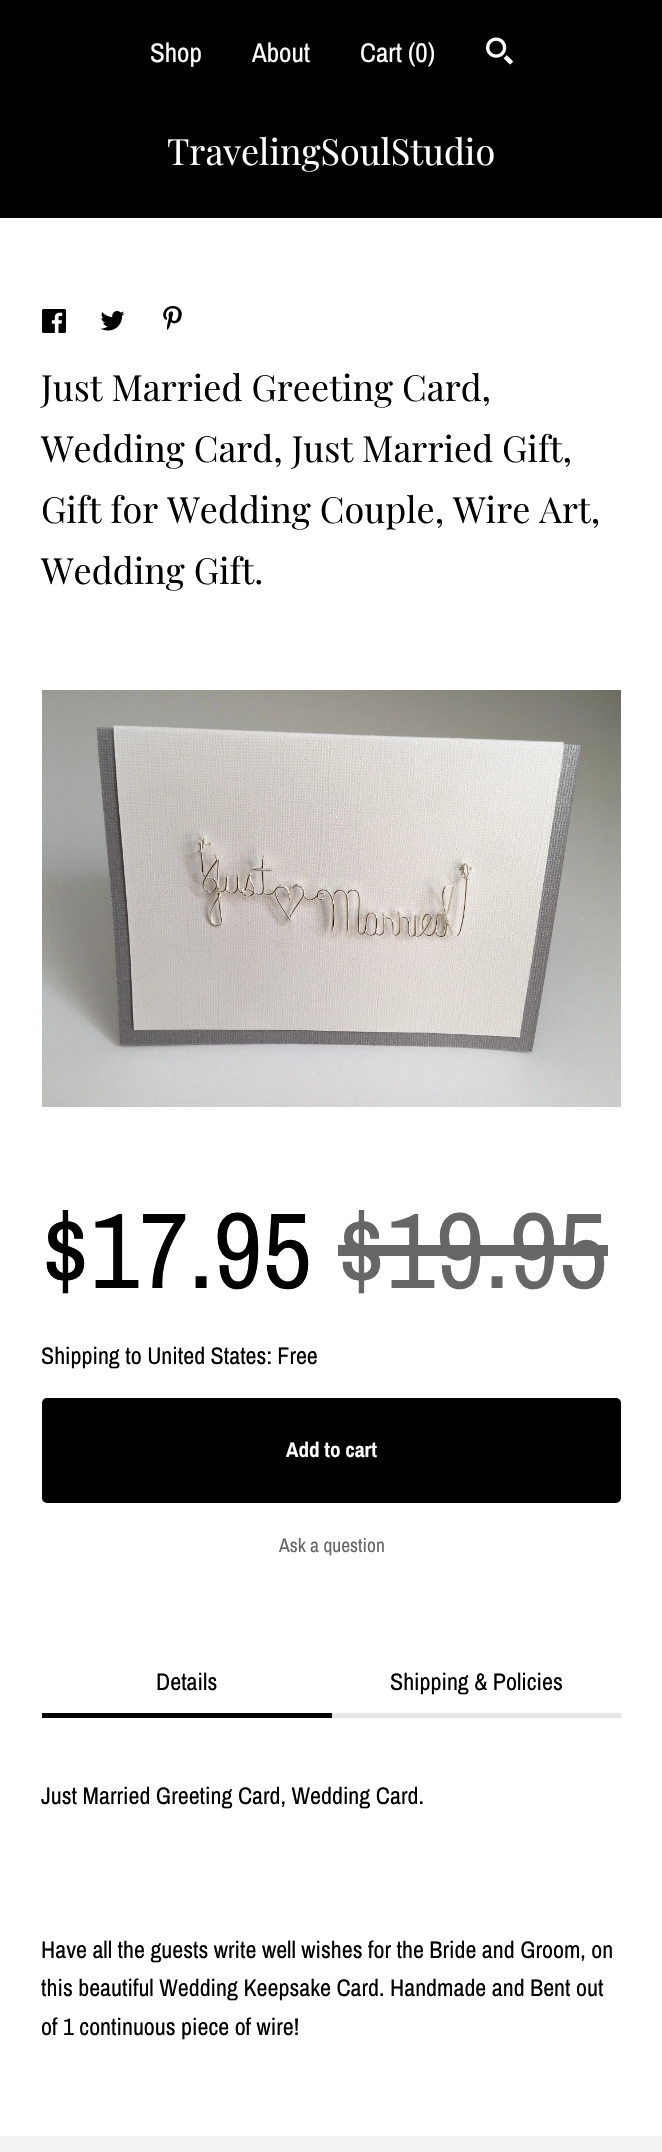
void draw(SkCanvas* canvas) {
  SkPaint paint;
  paint.setAntiAlias(true);
  auto face = [&](const char* family, int weight, float size, bool italic = false) {
    SkFontStyle style(weight, SkFontStyle::kNormal_Width,
      italic ? SkFontStyle::kItalic_Slant : SkFontStyle::kUpright_Slant);
    SkFont result(fontMgr->matchFamilyStyle(family, style), size);
    result.setSubpixel(true);
    return result;
  };
  auto paste = [&](const char* path, float x, float y, float w, float h) {
    auto image = SkImages::DeferredFromEncodedData(SkData::MakeFromFileName(path));
    canvas->drawImageRect(image, SkRect::MakeXYWH(x, y, w, h), SkSamplingOptions());
  };
  canvas->clear(0xffffffff);
  paint.setColor(0xff000000);
  canvas->drawRect(SkRect::MakeXYWH(0, 0, 662, 218), paint);
  paste("img/1.png", 486, 37, 27, 28);
  paste("img/2.png", 42, 309, 24, 24);
  paste("img/3.png", 100, 311, 25, 20);
  paste("img/4.png", 163, 306, 19, 24);
  paste("img/5.png", 42, 690, 579, 417);
  paint.setColor(0xff666666);
  canvas->drawRect(SkRect::MakeXYWH(338, 1245, 270, 11), paint);
  paint.setColor(0xff000000);
  canvas->drawRoundRect(SkRect::MakeXYWH(42, 1398, 579, 105), 5, 5, paint);
  {
    const struct { float x, y, w, h; SkColor color; } items[] = {
      {42, 1713, 290, 5, 0xff000000},
      {332, 1713, 289, 5, 0xffe6e6e6},
      {0, 2136, 662, 16, 0xfff2f2f2},
    };
    for (auto [x, y, w, h, color] : items) {
      paint.setColor(color);
      canvas->drawRect(SkRect::MakeXYWH(x, y, w, h), paint);
    }
  }
  auto f0 = face("Archivo Narrow", 400, 27);
  paint.setColor(0xffffffff);
  {
    const struct { const char* s; float x, y; } items[] = {
      {"Shop", 150, 62},
      {"About", 252, 62},
      {"Cart (0)", 360, 62},
    };
    for (auto [s, x, y] : items) {
      canvas->drawString(s, x, y, f0, paint);
    }
  }
  auto f1 = face("Playfair Display", 400, 36);
  canvas->drawString("TravelingSoulStudio", 167, 165, f1, paint);
  paint.setColor(0xff000000);
  {
    const struct { const char* s; float x, y; } items[] = {
      {"Just Married Greeting Card,", 41, 401},
      {"Wedding Card, Just Married Gift,", 41, 462},
      {"Gift for Wedding Couple, Wire Art,", 41, 523},
      {"Wedding Gift.", 41, 584},
    };
    for (auto [s, x, y] : items) {
      canvas->drawString(s, x, y, f1, paint);
    }
  }
  auto f2 = face("Archivo Narrow", 400, 108);
  canvas->drawString("$17.95", 41, 1288, f2, paint);
  paint.setColor(0xff666666);
  canvas->drawString("$19.95", 337, 1288, f2, paint);
  auto f3 = face("Archivo Narrow", 400, 24);
  paint.setColor(0xff000000);
  canvas->drawString("Shipping to United States: Free", 41, 1364, f3, paint);
  auto f4 = face("Archivo Narrow", 700, 21);
  paint.setColor(0xffffffff);
  canvas->drawString("Add to cart", 286, 1457, f4, paint);
  auto f5 = face("Archivo Narrow", 400, 19.5f);
  paint.setColor(0xff666666);
  canvas->drawString("Ask a question", 279, 1552, f5, paint);
  paint.setColor(0xff000000);
  {
    const struct { const char* s; float x, y; } items[] = {
      {"Details", 156, 1690},
      {"Shipping & Policies", 390, 1690},
      {"Just Married Greeting Card, Wedding Card.", 41, 1804},
      {"Have all the guests write well wishes for the Bride and Groom, on", 41, 1958},
      {"this beautiful Wedding Keepsake Card. Handmade and Bent out", 41, 1996},
      {"of 1 continuous piece of wire!", 41, 2035},
    };
    for (auto [s, x, y] : items) {
      canvas->drawString(s, x, y, f3, paint);
    }
  }
}
